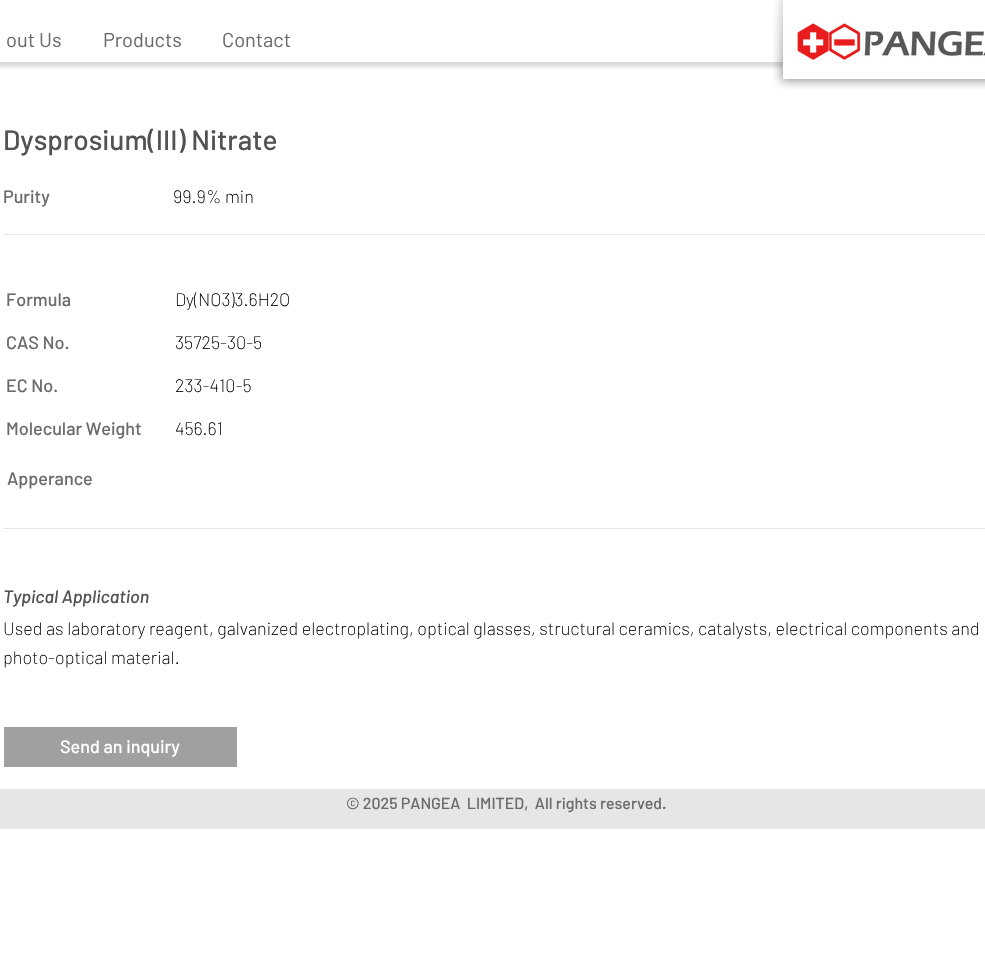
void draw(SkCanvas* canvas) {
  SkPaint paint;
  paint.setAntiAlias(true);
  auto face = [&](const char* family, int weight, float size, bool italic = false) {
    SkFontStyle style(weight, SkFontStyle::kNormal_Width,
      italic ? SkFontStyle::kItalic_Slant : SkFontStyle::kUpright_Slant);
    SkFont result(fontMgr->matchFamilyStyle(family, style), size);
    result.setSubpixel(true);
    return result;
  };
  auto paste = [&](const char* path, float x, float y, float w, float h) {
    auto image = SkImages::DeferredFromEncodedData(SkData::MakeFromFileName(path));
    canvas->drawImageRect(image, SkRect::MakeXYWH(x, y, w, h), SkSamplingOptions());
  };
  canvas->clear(0xffffffff);
  canvas->save();
  canvas->clipRect(SkRect::MakeXYWH(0, 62, 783, 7));
  paint.setColor(0x24000000);
  paint.setMaskFilter(SkMaskFilter::MakeBlur(kNormal_SkBlurStyle, 2));
  canvas->drawRect(SkRect::MakeXYWH(-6, -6, 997, 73), paint);
  paint.setMaskFilter(nullptr);
  canvas->restore();
  paste("img/1.png", 773, 0, 45, 89);
  paint.setColor(0xffffffff);
  canvas->drawRect(SkRect::MakeXYWH(783, 0, 202, 79), paint);
  paste("img/2.png", 797, 23, 188, 37);
  paste("img/3.png", 818, 79, 167, 10);
  {
    const struct { float x, y, w, h; SkColor color; } items[] = {
      {4, 234, 981, 1, 0xffe5e5e5},
      {3, 528, 982, 1, 0xffe5e5e5},
      {4, 727, 233, 40, 0xffa0a09f},
      {0, 789, 985, 40, 0xffe6e6e6},
    };
    for (auto [x, y, w, h, color] : items) {
      paint.setColor(color);
      canvas->drawRect(SkRect::MakeXYWH(x, y, w, h), paint);
    }
  }
  auto f0 = face("Barlow", 400, 20);
  paint.setColor(0xff6b6b6b);
  {
    const struct { const char* s; float x, y; } items[] = {
      {"out Us", 6, 47},
      {"Products", 103, 47},
      {"Contact", 222, 47},
    };
    for (auto [s, x, y] : items) {
      canvas->drawString(s, x, y, f0, paint);
    }
  }
  auto f1 = face("Barlow", 500, 28);
  paint.setColor(0xff525252);
  canvas->drawString("Dysprosium(III) Nitrate", 3, 150, f1, paint);
  auto f2 = face("Barlow", 500, 18);
  paint.setColor(0xff6b6b6b);
  canvas->drawString("Purity", 3, 203, f2, paint);
  auto f3 = face("Barlow", 200, 18);
  paint.setColor(0xff000000);
  canvas->drawString("99.9% min", 173, 203, f3, paint);
  paint.setColor(0xff6b6b6b);
  canvas->drawString("Formula", 6, 306, f2, paint);
  paint.setColor(0xff000000);
  canvas->drawString("Dy(NO3)3.6H2O", 175, 306, f3, paint);
  paint.setColor(0xff6b6b6b);
  canvas->drawString("CAS No.", 6, 349, f2, paint);
  paint.setColor(0xff000000);
  canvas->drawString("35725-30-5", 175, 349, f3, paint);
  paint.setColor(0xff6b6b6b);
  canvas->drawString("EC No.", 6, 392, f2, paint);
  paint.setColor(0xff000000);
  canvas->drawString("233-410-5", 175, 392, f3, paint);
  paint.setColor(0xff6b6b6b);
  canvas->drawString("Molecular Weight", 6, 435, f2, paint);
  paint.setColor(0xff000000);
  canvas->drawString("456.61", 175, 435, f3, paint);
  paint.setColor(0xff6b6b6b);
  canvas->drawString("Apperance", 7, 485, f2, paint);
  auto f4 = face("Barlow", 500, 18, true);
  paint.setColor(0xff525252);
  canvas->drawString("Typical Application", 3, 603, f4, paint);
  paint.setColor(0xff000000);
  canvas->drawString("Used as laboratory reagent, galvanized electroplating, optical glasses, structural ceramics, catalysts, electrical components and", 3, 635, f3, paint);
  canvas->drawString("photo-optical material.", 3, 664, f3, paint);
  paint.setColor(0xffffffff);
  canvas->drawString("Send an inquiry", 60, 753, f2, paint);
  auto f5 = face("Barlow", 500, 16);
  paint.setColor(0xff6b6b6b);
  canvas->drawString("© 2025 PANGEA  LIMITED,  All rights reserved.", 346, 809, f5, paint);
}
